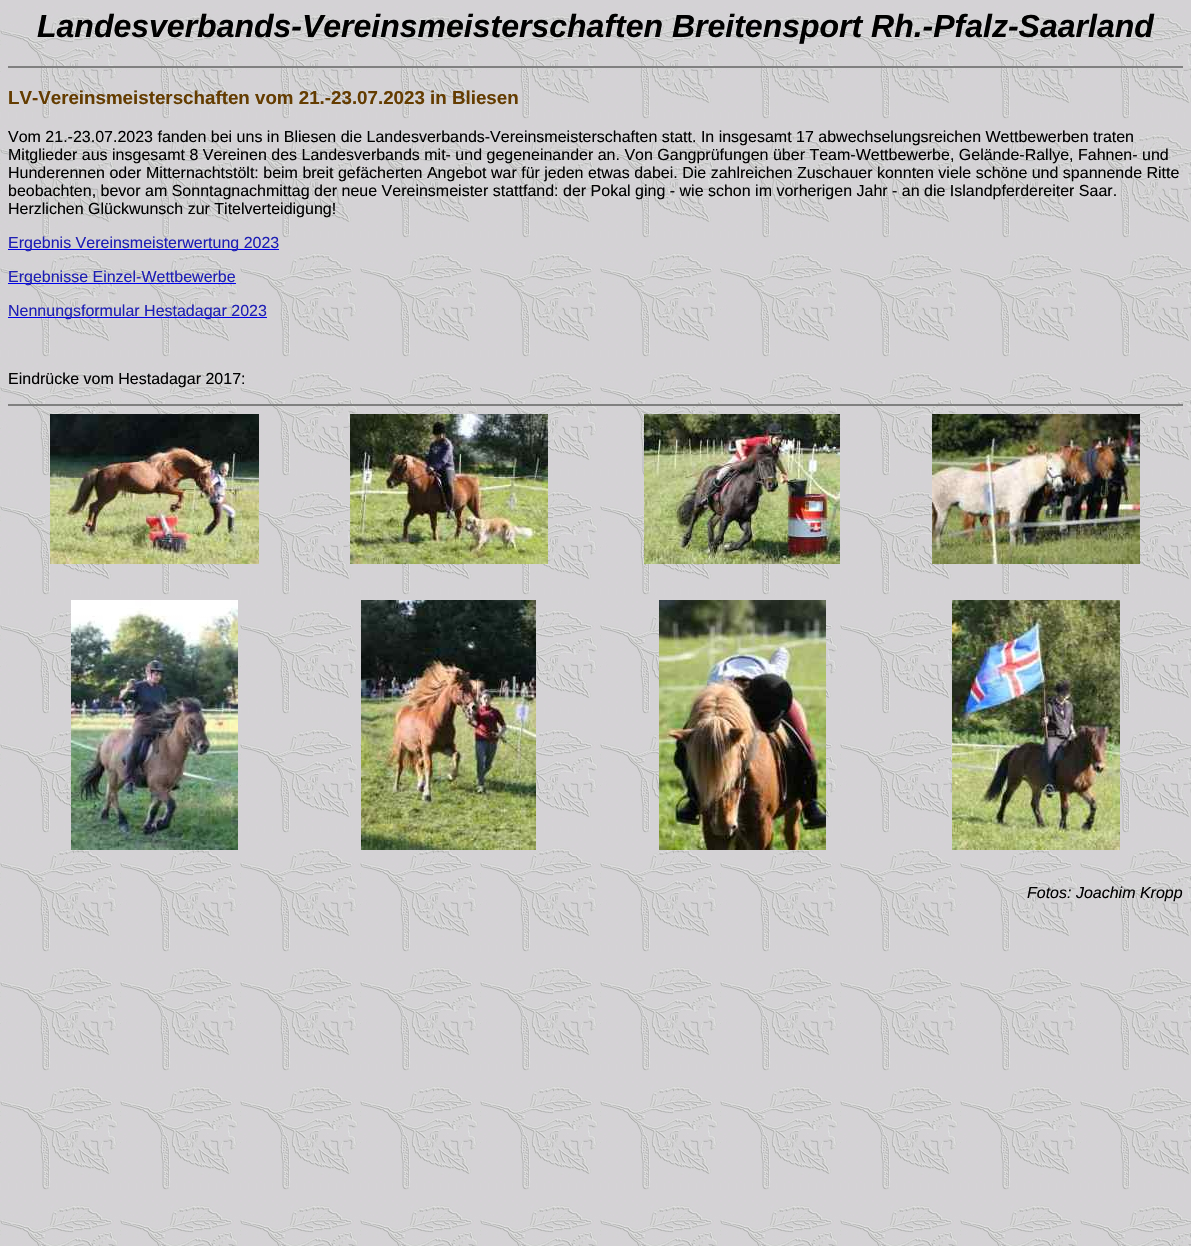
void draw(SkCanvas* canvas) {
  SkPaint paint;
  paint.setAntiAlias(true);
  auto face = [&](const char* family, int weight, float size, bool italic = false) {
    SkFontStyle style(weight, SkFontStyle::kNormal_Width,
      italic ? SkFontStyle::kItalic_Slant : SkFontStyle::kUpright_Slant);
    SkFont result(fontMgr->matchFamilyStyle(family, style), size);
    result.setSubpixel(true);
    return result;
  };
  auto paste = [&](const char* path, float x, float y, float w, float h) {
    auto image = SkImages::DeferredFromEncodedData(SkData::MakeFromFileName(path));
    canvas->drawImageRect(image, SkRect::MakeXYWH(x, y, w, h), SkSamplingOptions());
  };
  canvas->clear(0xffffffff);
  paste("img/1.png", 0, 0, 1191, 1246);
  {
    const struct { float x, y, w, h; SkColor color; } items[] = {
      {8, 66, 1175, 2, 0xff808080},
      {8, 249, 271, 1, 0xff0000ee},
      {8, 283, 228, 1, 0xff0000ee},
      {8, 317, 259, 1, 0xff0000ee},
      {8, 404, 1175, 2, 0xff808080},
    };
    for (auto [x, y, w, h, color] : items) {
      paint.setColor(color);
      canvas->drawRect(SkRect::MakeXYWH(x, y, w, h), paint);
    }
  }
  paste("img/2.png", 50, 414, 209, 150);
  paste("img/3.png", 350, 414, 198, 150);
  paste("img/4.png", 644, 414, 196, 150);
  paste("img/5.png", 932, 414, 208, 150);
  paste("img/6.png", 71, 600, 167, 250);
  paste("img/7.png", 361, 600, 175, 250);
  paste("img/8.png", 659, 600, 167, 250);
  paste("img/9.png", 952, 600, 168, 250);
  auto f0 = face("Liberation Sans", 700, 32, true);
  paint.setColor(0xff000000);
  canvas->drawString("Landesverbands-Vereinsmeisterschaften Breitensport Rh.-Pfalz-Saarland", 37, 37, f0, paint);
  auto f1 = face("Liberation Sans", 700, 18.75f);
  paint.setColor(0xff643c00);
  canvas->drawString("LV-Vereinsmeisterschaften vom 21.-23.07.2023 in Bliesen", 8, 104, f1, paint);
  auto f2 = face("Liberation Sans", 400, 16);
  paint.setColor(0xff000000);
  {
    const struct { const char* s; float x, y; } items[] = {
      {"Vom 21.-23.07.2023 fanden bei uns in Bliesen die Landesverbands-Vereinsmeisterschaften statt. In insgesamt 17 abwechselungsreichen Wettbewerben traten", 8, 142},
      {"Mitglieder aus insgesamt 8 Vereinen des Landesverbands mit- und gegeneinander an. Von Gangprüfungen über Team-Wettbewerbe, Gelände-Rallye, Fahnen- und", 8, 160},
      {"Hunderennen oder Mitternachtstölt: beim breit gefächerten Angebot war für jeden etwas dabei. Die zahlreichen Zuschauer konnten viele schöne und spannende Ritte", 8, 178},
      {"beobachten, bevor am Sonntagnachmittag der neue Vereinsmeister stattfand: der Pokal ging - wie schon im vorherigen Jahr - an die Islandpferdereiter Saar.", 8, 196},
      {"Herzlichen Glückwunsch zur Titelverteidigung!", 8, 214},
    };
    for (auto [s, x, y] : items) {
      canvas->drawString(s, x, y, f2, paint);
    }
  }
  paint.setColor(0xff1e1eb4);
  {
    const struct { const char* s; float x, y; } items[] = {
      {"Ergebnis Vereinsmeisterwertung 2023", 8, 248},
      {"Ergebnisse Einzel-Wettbewerbe", 8, 282},
      {"Nennungsformular Hestadagar 2023", 8, 316},
    };
    for (auto [s, x, y] : items) {
      canvas->drawString(s, x, y, f2, paint);
    }
  }
  paint.setColor(0xff000000);
  canvas->drawString("Eindrücke vom Hestadagar 2017:", 8, 384, f2, paint);
  auto f3 = face("Liberation Sans", 400, 16, true);
  canvas->drawString("Fotos: Joachim Kropp", 1027, 898, f3, paint);
}
